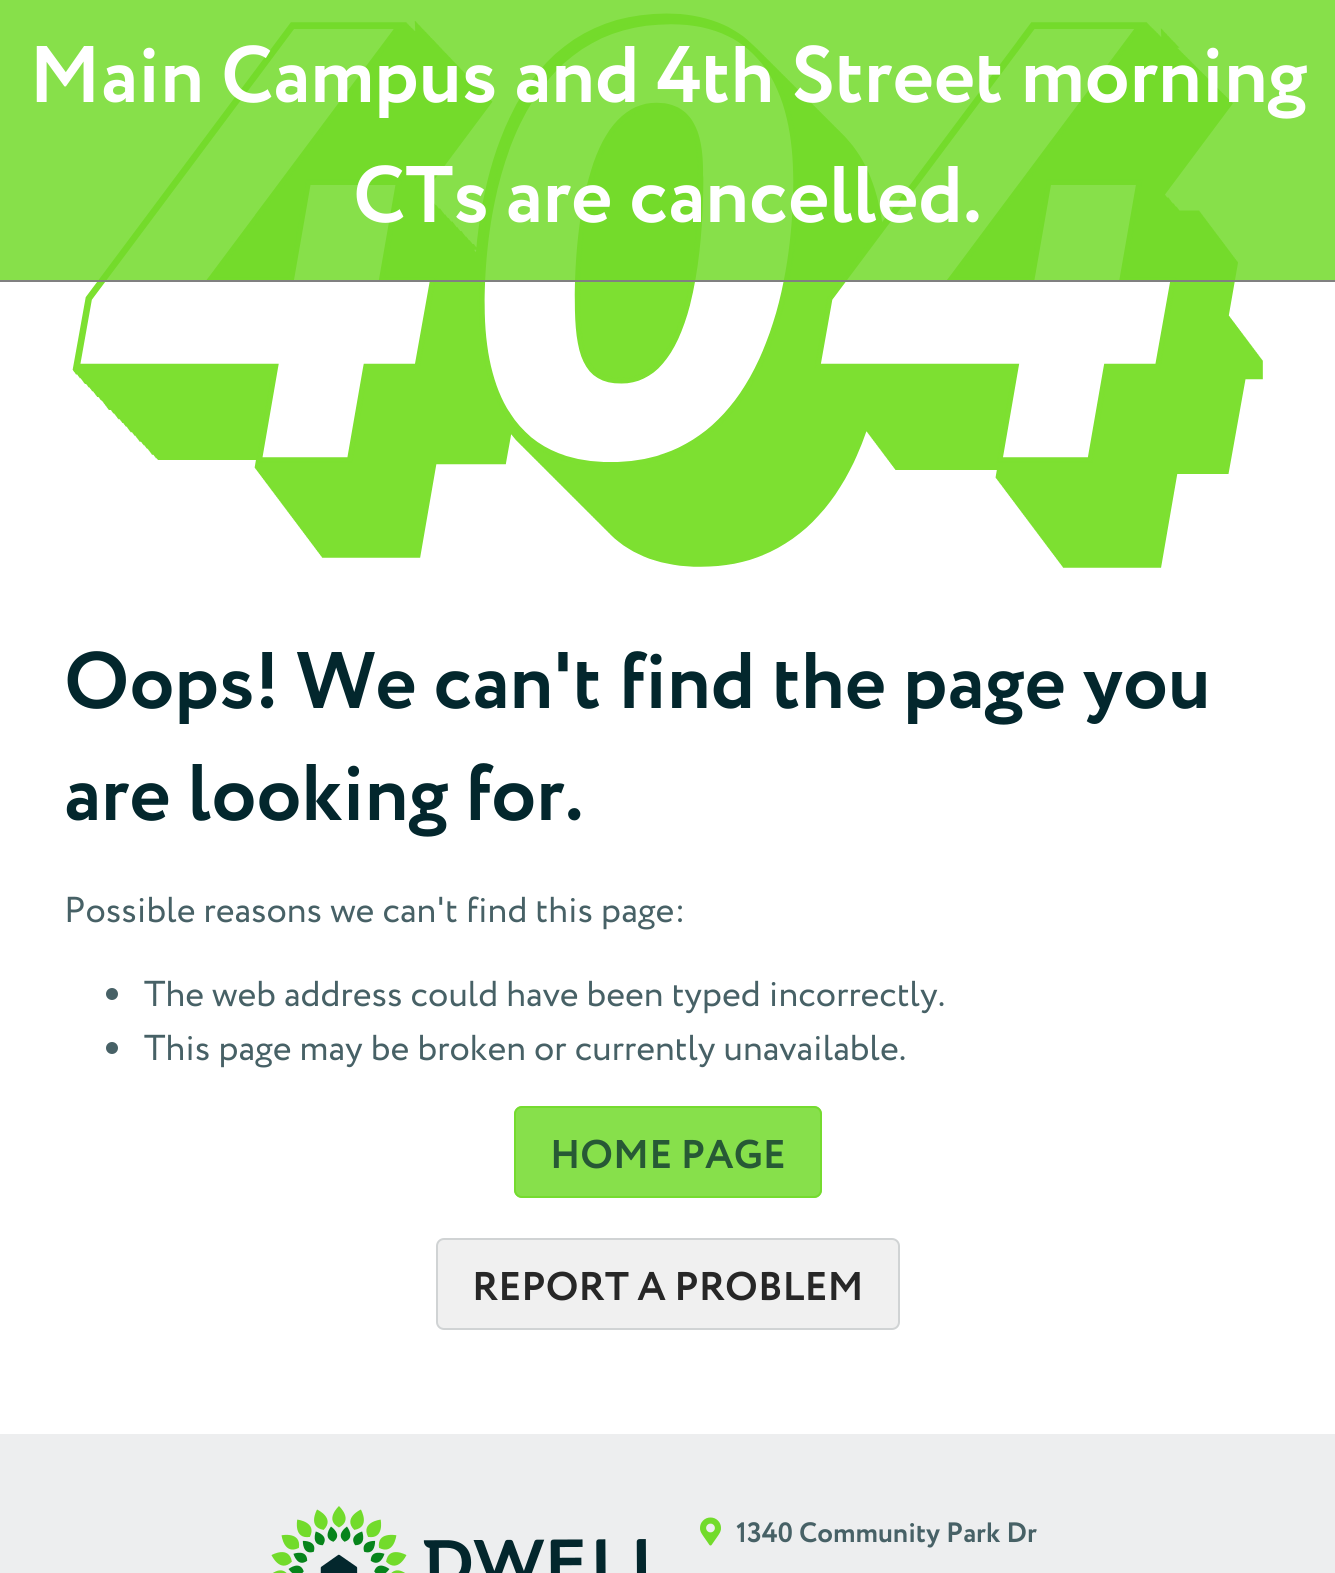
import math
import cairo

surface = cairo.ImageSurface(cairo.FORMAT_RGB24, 1335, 1573)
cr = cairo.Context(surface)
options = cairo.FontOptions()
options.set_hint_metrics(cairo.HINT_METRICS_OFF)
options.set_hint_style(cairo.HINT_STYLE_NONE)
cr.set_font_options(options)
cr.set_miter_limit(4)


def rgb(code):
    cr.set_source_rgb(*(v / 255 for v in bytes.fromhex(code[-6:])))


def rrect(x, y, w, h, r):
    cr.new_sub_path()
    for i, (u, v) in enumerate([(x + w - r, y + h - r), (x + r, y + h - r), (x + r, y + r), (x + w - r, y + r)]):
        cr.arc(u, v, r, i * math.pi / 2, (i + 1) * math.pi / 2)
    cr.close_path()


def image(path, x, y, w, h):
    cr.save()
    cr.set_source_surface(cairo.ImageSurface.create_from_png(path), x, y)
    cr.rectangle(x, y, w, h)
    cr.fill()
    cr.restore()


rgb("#ffffff")
cr.paint()
image("img/1.png", 72, 13, 1191, 555)
cr.set_source_rgba(0.447, 0.859, 0.169, 0.85)
cr.rectangle(0, 0, 1335, 280)
cr.fill()
rgb("#808080")
cr.rectangle(0, 280, 1335, 2)
cr.fill()
rgb("#476166")
cr.arc(112, 994, 6, 0, 2 * math.pi)
cr.fill()
cr.arc(112, 1048, 6, 0, 2 * math.pi)
cr.fill()
rgb("#87e04b")
rrect(514, 1106, 308, 92, 8)
cr.fill()
rrect(515, 1107, 306, 90, 7)
cr.set_source_rgba(0.447, 0.859, 0.169, 0.85)
cr.stroke()
rgb("#f0f0f0")
rrect(437, 1239, 462, 90, 7)
cr.fill_preserve()
rgb("#d0d3d4")
cr.stroke()
rgb("#edeeef")
cr.rectangle(0, 1434, 1335, 139)
cr.fill()
image("img/2.png", 271, 1506, 376, 67)
image("img/3.png", 700, 1517, 21, 29)
cr.select_font_face("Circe", cairo.FONT_SLANT_NORMAL, cairo.FONT_WEIGHT_BOLD)
cr.set_font_size(80)
rgb("#ffffff")
cr.move_to(29, 102)
cr.show_text("Main Campus and 4th Street morning")
cr.move_to(353, 222)
cr.show_text("CTs are cancelled.")
rgb("#03272d")
cr.move_to(64, 708)
cr.show_text("Oops! We can't find the page you")
cr.move_to(64, 820)
cr.show_text("are looking for.")
cr.select_font_face("Circe")
cr.set_font_size(36)
rgb("#476166")
for x, y, s in [
    (64, 922, "Possible reasons we can't find this page:"),
    (144, 1006, "The web address could have been typed incorrectly."),
    (144, 1060, "This page may be broken or currently unavailable."),
]:
    cr.move_to(x, y)
    cr.show_text(s)
cr.select_font_face("Circe", cairo.FONT_SLANT_NORMAL, cairo.FONT_WEIGHT_BOLD)
cr.set_font_size(40)
rgb("#275935")
cr.move_to(550, 1168)
cr.show_text("HOME PAGE")
rgb("#272727")
cr.move_to(472, 1300)
cr.show_text("REPORT A PROBLEM")
cr.set_font_size(28)
rgb("#476166")
cr.move_to(736, 1542)
cr.show_text("1340 Community Park Dr")
surface.write_to_png("page.png")
